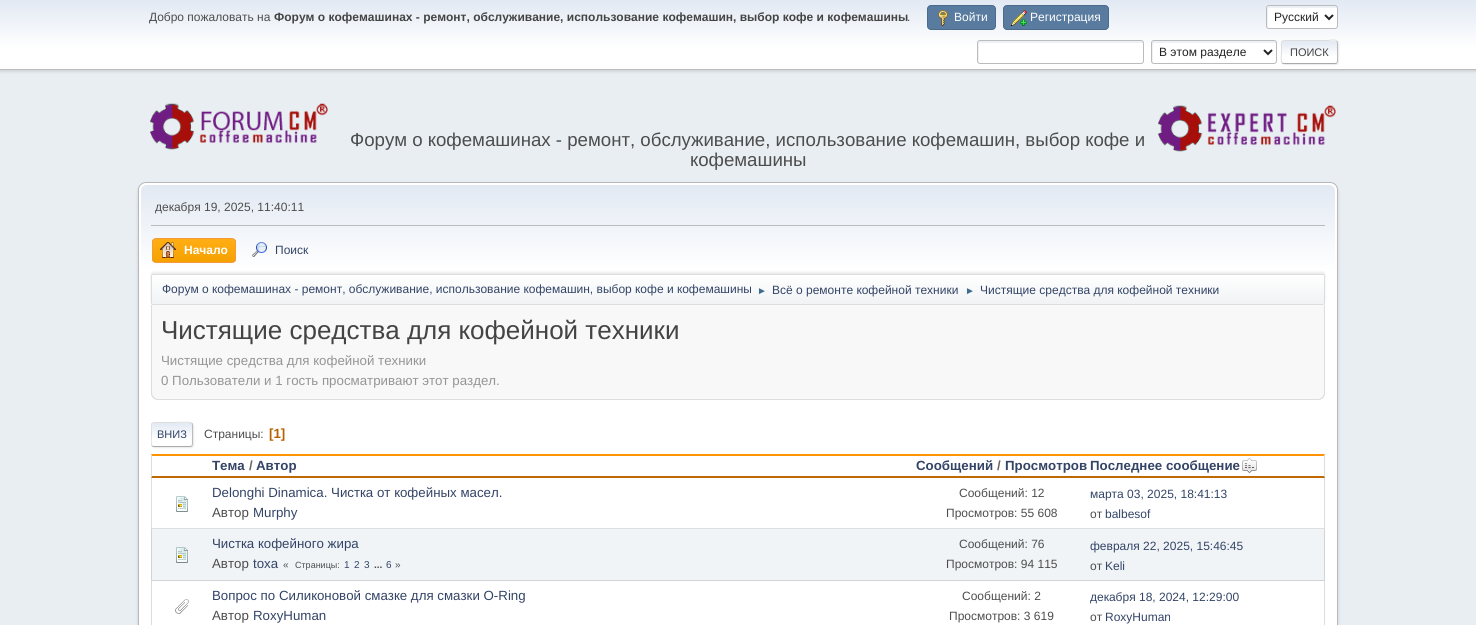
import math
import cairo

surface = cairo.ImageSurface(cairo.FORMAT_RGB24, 1476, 625)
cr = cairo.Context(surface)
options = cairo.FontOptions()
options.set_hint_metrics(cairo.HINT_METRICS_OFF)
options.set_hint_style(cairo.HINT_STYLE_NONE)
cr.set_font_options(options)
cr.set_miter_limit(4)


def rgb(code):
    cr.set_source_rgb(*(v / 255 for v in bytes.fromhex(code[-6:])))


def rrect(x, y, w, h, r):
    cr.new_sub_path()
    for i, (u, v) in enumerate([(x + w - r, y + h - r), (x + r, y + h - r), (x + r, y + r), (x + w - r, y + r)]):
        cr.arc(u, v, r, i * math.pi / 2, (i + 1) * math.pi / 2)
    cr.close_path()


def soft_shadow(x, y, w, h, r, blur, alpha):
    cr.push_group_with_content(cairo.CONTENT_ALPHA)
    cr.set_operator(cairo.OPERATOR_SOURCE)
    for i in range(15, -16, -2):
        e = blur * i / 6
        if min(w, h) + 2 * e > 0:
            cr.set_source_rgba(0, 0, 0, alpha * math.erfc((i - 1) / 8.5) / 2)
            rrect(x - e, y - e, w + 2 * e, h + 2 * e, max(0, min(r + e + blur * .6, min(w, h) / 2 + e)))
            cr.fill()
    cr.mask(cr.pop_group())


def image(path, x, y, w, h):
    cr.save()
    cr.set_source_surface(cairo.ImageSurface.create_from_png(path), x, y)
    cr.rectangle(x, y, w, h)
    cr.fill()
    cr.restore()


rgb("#e9eef2")
cr.paint()
rgb("#000000")
soft_shadow(0, 1, 1476, 70, 0, 2, 0.16)
gradient = cairo.LinearGradient(738, 0, 738, 69)
gradient.add_color_stop_rgba(0, 0.886, 0.914, 0.953, 1)
gradient.add_color_stop_rgba(0.7, 1, 1, 1, 1)
cr.set_source(gradient)
cr.rectangle(0, 0, 1476, 69)
cr.fill()
rgb("#bbbbbb")
cr.rectangle(0, 69, 1476, 1)
cr.fill()
rgb("#597b9f")
rrect(927.5, 5.5, 68, 24, 3.5)
cr.fill_preserve()
rgb("#4a6b8c")
cr.set_line_width(1)
cr.stroke()
image("img/1.png", 938, 10, 10, 16)
rgb("#597b9f")
rrect(1003.5, 5.5, 105, 24, 3.5)
cr.fill_preserve()
rgb("#4a6b8c")
cr.stroke()
image("img/2.png", 1011, 10, 16, 16)
rgb("#ffffff")
rrect(1266, 5, 72, 24, 3)
cr.fill()
rgb("#ecf1f8")
cr.new_path()
cr.move_to(1270, 8)
cr.line_to(1337, 8)
cr.curve_to(1337, 4, 1329, 6, 1324, 6)
cr.line_to(1280, 6)
cr.curve_to(1267, 6, 1267, 3, 1267, 14)
cr.curve_to(1267, 16, 1266, 26, 1268, 28)
cr.line_to(1268, 10)
cr.curve_to(1268, 9, 1269, 8, 1270, 8)
cr.close_path()
cr.fill()
rrect(1266.5, 5.5, 71, 23, 2.5)
rgb("#bbbbbb")
cr.stroke()
cr.new_path()
cr.move_to(1325, 15)
cr.line_to(1329, 19)
cr.line_to(1333, 15)
rgb("#222222")
cr.set_line_width(2)
cr.stroke()
rgb("#ffffff")
rrect(977, 40, 167, 24, 3)
cr.fill()
rgb("#ecf1f8")
cr.new_path()
cr.move_to(981, 43)
cr.line_to(1143, 43)
cr.line_to(1143, 42)
cr.line_to(1141, 41)
cr.line_to(980, 41)
cr.curve_to(979, 41, 978, 42, 978, 43)
cr.curve_to(978, 46, 977, 62, 979, 63)
cr.line_to(979, 45)
cr.curve_to(979, 44, 980, 43, 981, 43)
cr.close_path()
cr.fill()
rrect(977.5, 40.5, 166, 23, 2.5)
rgb("#bbbbbb")
cr.set_line_width(1)
cr.stroke()
rgb("#ffffff")
rrect(1151, 40, 126, 24, 3)
cr.fill()
rgb("#ecf1f8")
cr.new_path()
cr.move_to(1155, 43)
cr.line_to(1276, 43)
cr.curve_to(1276, 42, 1275, 41, 1274, 41)
cr.line_to(1154, 41)
cr.curve_to(1153, 41, 1152, 42, 1152, 43)
cr.line_to(1152, 61)
cr.curve_to(1152, 62, 1152, 62, 1153, 63)
cr.line_to(1153, 45)
cr.curve_to(1153, 44, 1154, 43, 1155, 43)
cr.close_path()
cr.fill()
rrect(1151.5, 40.5, 125, 23, 2.5)
rgb("#bbbbbb")
cr.stroke()
cr.new_path()
cr.move_to(1264, 50)
cr.line_to(1268, 54)
cr.line_to(1272, 50)
rgb("#222222")
cr.set_line_width(2)
cr.stroke()
rgb("#dddddd")
soft_shadow(1282, 41, 57, 24, 3, 0.5, 0.57)
rgb("#ffffff")
rrect(1281, 40, 57, 24, 3)
cr.fill()
cr.save()
rrect(1281, 40, 57, 24, 3)
cr.clip()
gradient = cairo.LinearGradient(1310, 41, 1310, 63)
gradient.add_color_stop_rgba(0, 0.886, 0.914, 0.953, 1)
gradient.add_color_stop_rgba(0.7, 1, 1, 1, 1)
cr.set_source(gradient)
cr.rectangle(1281, 41, 57, 22)
cr.fill()
cr.restore()
cr.new_path()
cr.move_to(1337, 41)
cr.curve_to(1337, 41.5, 1337.5, 42.5, 1337.5, 43)
cr.line_to(1337.5, 61)
cr.curve_to(1337.5, 61.5, 1337, 62.5, 1337, 63)
rgb("#bbbbbb")
cr.set_line_width(1)
cr.stroke()
cr.new_path()
cr.move_to(1337, 63)
cr.line_to(1335, 63.5)
cr.line_to(1284, 63.5)
cr.line_to(1282, 63)
rgb("#aaaaaa")
cr.stroke()
cr.new_path()
cr.move_to(1282, 63)
cr.curve_to(1280.5, 61, 1281.5, 54, 1281.5, 52)
cr.curve_to(1281.5, 39, 1279.5, 40.5, 1292.5, 40.5)
cr.line_to(1326.5, 40.5)
cr.curve_to(1330, 40.5, 1334.5, 39, 1337, 41)
rgb("#dddddd")
cr.stroke()
image("img/3.png", 150, 103, 178, 47)
image("img/4.png", 1158, 105, 178, 47)
rgb("#000000")
soft_shadow(138, 184, 1200, 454, 8, 1.5, 0.14)
rgb("#ffffff")
rrect(138.5, 182.5, 1199, 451, 7.5)
cr.fill_preserve()
rgb("#b8b8b8")
cr.stroke()
gradient = cairo.LinearGradient(738, 185, 738, 307)
gradient.add_color_stop_rgba(0, 0.886, 0.914, 0.953, 1)
gradient.add_color_stop_rgba(0.7, 1, 1, 1, 1)
cr.set_source(gradient)
cr.new_path()
cr.move_to(147, 185)
cr.line_to(1329, 185)
cr.curve_to(1332.5, 185, 1335, 187.5, 1335, 191)
cr.line_to(1335, 307)
cr.line_to(141, 307)
cr.line_to(141, 191)
cr.curve_to(141, 187.5, 143.5, 185, 147, 185)
cr.close_path()
cr.fill()
rgb("#bbbbbb")
cr.rectangle(151, 225, 1174, 1)
cr.fill()
cr.save()
rrect(152, 238, 84, 25, 4)
cr.clip()
gradient = cairo.LinearGradient(194, 239, 194, 262)
gradient.add_color_stop_rgba(0, 1, 0.682, 0.078, 1)
gradient.add_color_stop_rgba(1, 0.961, 0.631, 0, 1)
cr.set_source(gradient)
cr.rectangle(152, 239, 84, 23)
cr.fill()
cr.restore()
rrect(152.5, 238.5, 83, 24, 3.5)
rgb("#f49a3a")
cr.stroke()
image("img/5.png", 160, 242, 16, 16)
image("img/6.png", 252, 242, 15, 15)
rgb("#000000")
soft_shadow(151, 272, 1174, 31, 2, 1, 0.08)
cr.save()
rrect(151, 274, 1174, 31, 2)
cr.clip()
gradient = cairo.LinearGradient(738, 275, 738, 304)
gradient.add_color_stop_rgba(0, 1, 1, 1, 1)
gradient.add_color_stop_rgba(0.95, 0.945, 0.953, 0.961, 1)
cr.set_source(gradient)
cr.rectangle(151, 275, 1174, 29)
cr.fill()
cr.restore()
rrect(151.5, 274.5, 1173, 30, 1.5)
rgb("#dddddd")
cr.stroke()
rgb("#f8f8f8")
cr.new_path()
cr.move_to(151, 305)
cr.line_to(1325, 305)
cr.line_to(1325, 393)
cr.curve_to(1325, 397, 1322, 400, 1318, 400)
cr.line_to(158, 400)
cr.curve_to(154, 400, 151, 397, 151, 393)
cr.close_path()
cr.fill()
rgb("#dddddd")
cr.set_fill_rule(cairo.FILL_RULE_EVEN_ODD)
cr.new_path()
cr.move_to(151, 305)
cr.line_to(1325, 305)
cr.line_to(1325, 393)
cr.curve_to(1325, 397, 1322, 400, 1318, 400)
cr.line_to(158, 400)
cr.curve_to(154, 400, 151, 397, 151, 393)
cr.close_path()
cr.move_to(152, 305)
cr.line_to(1324, 305)
cr.line_to(1324, 393)
cr.curve_to(1324, 396, 1321, 399, 1318, 399)
cr.line_to(158, 399)
cr.curve_to(155, 399, 152, 396, 152, 393)
cr.close_path()
cr.fill()
rgb("#dddddd")
soft_shadow(152, 423, 42, 25, 3, 0.5, 0.57)
rgb("#ffffff")
rrect(151, 422, 42, 25, 3)
cr.fill()
cr.save()
cr.set_fill_rule(cairo.FILL_RULE_WINDING)
rrect(151, 422, 42, 25, 3)
cr.clip()
gradient = cairo.LinearGradient(172, 423, 172, 446)
gradient.add_color_stop_rgba(0, 0.886, 0.914, 0.953, 1)
gradient.add_color_stop_rgba(0.7, 1, 1, 1, 1)
cr.set_source(gradient)
cr.rectangle(151, 423, 42, 23)
cr.fill()
cr.restore()
cr.new_path()
cr.move_to(192, 423)
cr.curve_to(192, 423.5, 192.5, 424.5, 192.5, 425)
cr.line_to(192.5, 444)
cr.curve_to(192.5, 444.5, 192, 445.5, 192, 446)
rgb("#bbbbbb")
cr.stroke()
cr.new_path()
cr.move_to(192, 446)
cr.line_to(190, 446.5)
cr.line_to(154, 446.5)
cr.line_to(152, 446)
rgb("#aaaaaa")
cr.stroke()
cr.save()
cr.set_fill_rule(cairo.FILL_RULE_WINDING)
cr.rectangle(151, 415, 1174, 39)
cr.clip()
cr.new_path()
cr.move_to(152, 446)
cr.curve_to(150.5, 444, 151.5, 437, 151.5, 434.5)
cr.curve_to(151.5, 422.5, 149, 422.5, 160, 422.5)
cr.line_to(172, 422.5)
cr.curve_to(175, 422.5, 190, 421.5, 192, 423)
rgb("#dddddd")
cr.stroke()
cr.restore()
rgb("#ff9400")
cr.set_fill_rule(cairo.FILL_RULE_WINDING)
cr.new_path()
cr.move_to(151, 454)
cr.line_to(1325, 454)
cr.line_to(1324, 456)
cr.line_to(152, 456)
cr.close_path()
cr.fill()
rgb("#dddddd")
cr.new_path()
cr.move_to(1325, 454)
cr.line_to(1325, 478)
cr.line_to(1324, 476)
cr.line_to(1324, 456)
cr.close_path()
cr.fill()
rgb("#bf6900")
cr.new_path()
cr.move_to(1325, 478)
cr.line_to(151, 478)
cr.line_to(152, 476)
cr.line_to(1324, 476)
cr.close_path()
cr.fill()
rgb("#dddddd")
cr.new_path()
cr.move_to(151, 478)
cr.line_to(151, 454)
cr.line_to(152, 456)
cr.line_to(152, 476)
cr.close_path()
cr.fill()
image("img/7.png", 1242, 458, 15, 15)
rgb("#dcdcdc")
cr.new_path()
cr.move_to(1325, 478)
cr.line_to(1325, 529)
cr.line_to(1324, 528)
cr.line_to(1324, 478)
cr.close_path()
cr.fill()
cr.set_source_rgba(0, 0, 0, 0.13)
cr.new_path()
cr.move_to(1325, 529)
cr.line_to(151, 529)
cr.line_to(152, 528)
cr.line_to(1324, 528)
cr.close_path()
cr.fill()
cr.new_path()
cr.move_to(151, 529)
cr.line_to(151, 478)
cr.line_to(152, 478)
cr.line_to(152, 528)
cr.close_path()
cr.fill()
image("img/8.png", 176, 496, 12, 16)
rgb("#f0f4f7")
cr.rectangle(151, 529, 1174, 52)
cr.fill()
rgb("#d1d4d7")
cr.new_path()
cr.move_to(1325, 529)
cr.line_to(1325, 581)
cr.line_to(1324, 580)
cr.line_to(1324, 529)
cr.close_path()
cr.fill()
cr.set_source_rgba(0, 0, 0, 0.13)
cr.new_path()
cr.move_to(1325, 581)
cr.line_to(151, 581)
cr.line_to(152, 580)
cr.line_to(1324, 580)
cr.close_path()
cr.fill()
cr.new_path()
cr.move_to(151, 581)
cr.line_to(151, 529)
cr.line_to(152, 529)
cr.line_to(152, 580)
cr.close_path()
cr.fill()
image("img/9.png", 176, 547, 12, 16)
rgb("#dcdcdc")
cr.new_path()
cr.move_to(1325, 581)
cr.line_to(1325, 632)
cr.line_to(1324, 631)
cr.line_to(1324, 581)
cr.close_path()
cr.fill()
cr.new_path()
cr.move_to(151, 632)
cr.line_to(151, 581)
cr.line_to(152, 581)
cr.line_to(152, 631)
cr.close_path()
cr.fill()
image("img/10.png", 175, 599, 14, 15)
cr.select_font_face("Liberation Sans")
cr.set_font_size(12)
rgb("#4d4d4d")
cr.move_to(149, 21)
cr.show_text("Добро пожаловать на")
cr.select_font_face("Liberation Sans", cairo.FONT_SLANT_NORMAL, cairo.FONT_WEIGHT_BOLD)
rgb("#444444")
cr.move_to(274, 21)
cr.show_text("Форум о кофемашинах - ремонт, обслуживание, использование кофемашин, выбор кофе и кофемашины")
cr.select_font_face("Liberation Sans")
rgb("#4d4d4d")
cr.move_to(907, 21)
cr.show_text(".")
rgb("#ffffff")
cr.move_to(954, 21)
cr.show_text("Войти")
cr.move_to(1030, 21)
cr.show_text("Регистрация")
rgb("#222222")
cr.move_to(1274, 21)
cr.show_text("Русский")
cr.move_to(1159, 56)
cr.show_text("В этом разделе")
cr.set_font_size(11)
rgb("#444444")
cr.move_to(1290, 56)
cr.show_text("ПОИСК")
cr.set_font_size(18.65)
rgb("#4d4d4d")
cr.move_to(350, 146)
cr.show_text("Форум о кофемашинах - ремонт, обслуживание, использование кофемашин, выбор кофе и")
cr.move_to(690, 166)
cr.show_text("кофемашины")
cr.set_font_size(12)
cr.move_to(155, 211)
cr.show_text("декабря 19, 2025, 11:40:11")
cr.select_font_face("Liberation Sans", cairo.FONT_SLANT_NORMAL, cairo.FONT_WEIGHT_BOLD)
rgb("#ffffff")
cr.move_to(184, 254)
cr.show_text("Начало")
cr.select_font_face("Liberation Sans")
rgb("#334466")
cr.move_to(275, 254)
cr.show_text("Поиск")
cr.move_to(162, 293)
cr.show_text("Форум о кофемашинах - ремонт, обслуживание, использование кофемашин, выбор кофе и кофемашины")
cr.set_font_size(10)
rgb("#3f6b8c")
cr.move_to(757, 294)
cr.show_text("►")
cr.set_font_size(12)
rgb("#334466")
cr.move_to(772, 294)
cr.show_text("Всё о ремонте кофейной техники")
cr.set_font_size(10)
rgb("#3f6b8c")
cr.move_to(965, 294)
cr.show_text("►")
cr.set_font_size(12)
rgb("#334466")
cr.move_to(980, 294)
cr.show_text("Чистящие средства для кофейной техники")
cr.set_font_size(26)
rgb("#444444")
cr.move_to(161, 339)
cr.show_text("Чистящие средства для кофейной техники")
cr.set_font_size(13.3)
rgb("#959595")
cr.move_to(161, 365)
cr.show_text("Чистящие средства для кофейной техники")
cr.move_to(161, 385)
cr.show_text("0 Пользователи и 1 гость просматривают этот раздел.")
cr.set_font_size(11)
rgb("#334466")
cr.move_to(157, 438)
cr.show_text("ВНИЗ")
cr.set_font_size(12)
rgb("#4d4d4d")
cr.move_to(204, 438)
cr.show_text("Страницы:")
cr.select_font_face("Liberation Sans", cairo.FONT_SLANT_NORMAL, cairo.FONT_WEIGHT_BOLD)
cr.set_font_size(13.3)
rgb("#b46100")
cr.move_to(269, 438)
cr.show_text("[1]")
rgb("#334466")
cr.move_to(212, 470)
cr.show_text("Тема")
rgb("#666666")
cr.move_to(249, 470)
cr.show_text("/")
rgb("#334466")
cr.move_to(256, 470)
cr.show_text("Автор")
cr.move_to(916, 470)
cr.show_text("Сообщений")
rgb("#666666")
cr.move_to(997, 470)
cr.show_text("/")
rgb("#334466")
cr.move_to(1005, 470)
cr.show_text("Просмотров")
cr.move_to(1090, 470)
cr.show_text("Последнее сообщение")
cr.select_font_face("Liberation Sans")
cr.move_to(212, 497)
cr.show_text("Delonghi Dinamica. Чистка от кофейных масел.")
rgb("#4d4d4d")
cr.move_to(212, 517)
cr.show_text("Автор")
rgb("#334466")
cr.move_to(253, 517)
cr.show_text("Murphy")
cr.set_font_size(12)
rgb("#4d4d4d")
cr.move_to(959, 497)
cr.show_text("Сообщений: 12")
cr.move_to(946, 517)
cr.show_text("Просмотров: 55 608")
rgb("#334466")
cr.move_to(1090, 498)
cr.show_text("марта 03, 2025, 18:41:13")
rgb("#4d4d4d")
cr.move_to(1090, 518)
cr.show_text("от")
rgb("#334466")
cr.move_to(1105, 518)
cr.show_text("balbesof")
cr.set_font_size(13.3)
cr.move_to(212, 548)
cr.show_text("Чистка кофейного жира")
rgb("#4d4d4d")
cr.move_to(212, 568)
cr.show_text("Автор")
rgb("#334466")
cr.move_to(253, 568)
cr.show_text("toxa")
cr.set_font_size(10)
rgb("#4d4d4d")
cr.move_to(283, 568)
cr.show_text("«")
cr.set_font_size(9)
cr.move_to(295, 568)
cr.show_text("Страницы:")
cr.set_font_size(10)
rgb("#334466")
for x, y, s in [
    (344, 568, "1"),
    (354, 568, "2"),
    (364, 568, "3"),
]:
    cr.move_to(x, y)
    cr.show_text(s)
cr.select_font_face("Liberation Sans", cairo.FONT_SLANT_NORMAL, cairo.FONT_WEIGHT_BOLD)
rgb("#4d4d4d")
cr.move_to(374, 568)
cr.show_text("...")
cr.select_font_face("Liberation Sans")
rgb("#334466")
cr.move_to(386, 568)
cr.show_text("6")
rgb("#4d4d4d")
cr.move_to(395, 568)
cr.show_text("»")
cr.set_font_size(12)
cr.move_to(959, 548)
cr.show_text("Сообщений: 76")
cr.move_to(946, 568)
cr.show_text("Просмотров: 94 115")
rgb("#334466")
cr.move_to(1090, 550)
cr.show_text("февраля 22, 2025, 15:46:45")
rgb("#4d4d4d")
cr.move_to(1090, 570)
cr.show_text("от")
rgb("#334466")
cr.move_to(1105, 570)
cr.show_text("Keli")
cr.set_font_size(13.3)
cr.move_to(212, 600)
cr.show_text("Вопрос по Силиконовой смазке для смазки O-Ring")
rgb("#4d4d4d")
cr.move_to(212, 620)
cr.show_text("Автор")
rgb("#334466")
cr.move_to(253, 620)
cr.show_text("RoxyHuman")
cr.set_font_size(12)
rgb("#4d4d4d")
cr.move_to(962, 600)
cr.show_text("Сообщений: 2")
cr.move_to(949, 620)
cr.show_text("Просмотров: 3 619")
rgb("#334466")
cr.move_to(1090, 601)
cr.show_text("декабря 18, 2024, 12:29:00")
rgb("#4d4d4d")
cr.move_to(1090, 621)
cr.show_text("от")
rgb("#334466")
cr.move_to(1105, 621)
cr.show_text("RoxyHuman")
surface.write_to_png("page.png")
